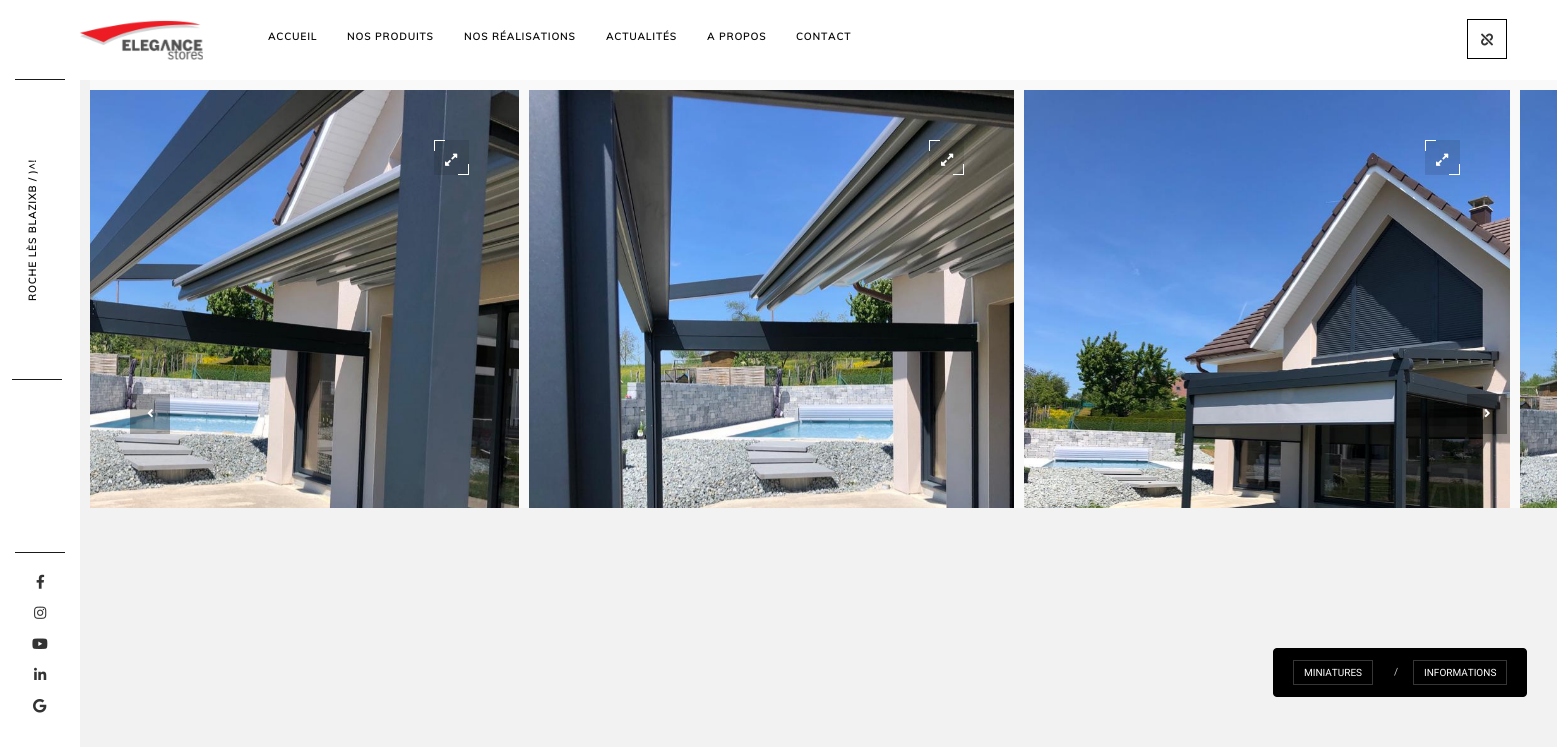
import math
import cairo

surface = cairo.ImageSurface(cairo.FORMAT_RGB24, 1557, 747)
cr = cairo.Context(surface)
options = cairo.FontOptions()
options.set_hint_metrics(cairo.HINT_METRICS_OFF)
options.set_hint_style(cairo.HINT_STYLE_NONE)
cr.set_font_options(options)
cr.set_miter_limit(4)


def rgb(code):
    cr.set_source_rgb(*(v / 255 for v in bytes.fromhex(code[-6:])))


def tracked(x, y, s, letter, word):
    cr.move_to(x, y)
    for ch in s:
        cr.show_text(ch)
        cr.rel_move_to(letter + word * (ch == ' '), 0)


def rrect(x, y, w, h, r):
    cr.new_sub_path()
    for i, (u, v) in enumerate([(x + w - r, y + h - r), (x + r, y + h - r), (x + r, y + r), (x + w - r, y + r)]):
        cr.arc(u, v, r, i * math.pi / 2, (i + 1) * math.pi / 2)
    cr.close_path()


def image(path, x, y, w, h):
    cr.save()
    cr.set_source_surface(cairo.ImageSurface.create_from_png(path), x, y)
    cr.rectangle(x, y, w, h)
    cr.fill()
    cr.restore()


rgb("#f2f2f2")
cr.paint()
rgb("#ffffff")
cr.rectangle(0, 0, 1557, 80)
cr.fill()
image("img/1.png", 80, 20, 123, 40)
cr.rectangle(1467.5, 19.5, 39, 39)
rgb("#000000")
cr.set_line_width(1)
cr.stroke()
image("img/2.png", 1481, 33, 12, 13)
for x, y, w, h, color in [
    (15, 79, 50, 1, "#1a1a1a"),
    (0, 80, 80, 667, "#ffffff"),
    (12, 379, 50, 1, "#1a1a1a"),
    (15, 552, 50, 1, "#1a1a1a"),
]:
    rgb(color)
    cr.rectangle(x, y, w, h)
    cr.fill()
image("img/3.png", 36, 574, 9, 15)
image("img/4.png", 34, 606, 13, 13)
image("img/5.png", 32, 638, 16, 11)
image("img/6.png", 34, 667, 13, 13)
image("img/7.png", 33, 699, 14, 14)
rgb("#f9f9f9")
cr.rectangle(90, 80, 1467, 428)
cr.fill()
image("img/8.png", 90, 90, 429, 418)
cr.set_source_rgba(0, 0, 0, 0.11)
cr.rectangle(434, 140, 35, 35)
cr.fill()
rgb("#ffffff")
cr.rectangle(434, 140, 11, 1)
cr.rectangle(434, 140, 1, 11)
cr.fill()
image("img/9.png", 445, 153, 13, 13)
cr.rectangle(468, 164, 1, 11)
cr.fill()
cr.rectangle(458, 174, 11, 1)
cr.fill()
image("img/10.png", 529, 90, 485, 418)
cr.set_source_rgba(0, 0, 0, 0.11)
cr.rectangle(929, 140, 35, 35)
cr.fill()
rgb("#ffffff")
cr.rectangle(929, 140, 11, 1)
cr.rectangle(929, 140, 1, 11)
cr.fill()
image("img/11.png", 941, 153, 13, 13)
cr.rectangle(963, 164, 1, 11)
cr.fill()
cr.rectangle(953, 174, 11, 1)
cr.fill()
image("img/12.png", 1024, 90, 486, 418)
cr.set_source_rgba(0, 0, 0, 0.11)
cr.rectangle(1425, 140, 35, 35)
cr.fill()
rgb("#ffffff")
cr.rectangle(1425, 140, 11, 1)
cr.rectangle(1425, 140, 1, 11)
cr.fill()
image("img/13.png", 1436, 153, 13, 13)
cr.rectangle(1459, 164, 1, 11)
cr.fill()
cr.rectangle(1449, 174, 11, 1)
cr.fill()
image("img/14.png", 1520, 90, 37, 418)
cr.set_source_rgba(0, 0, 0, 0.31)
cr.rectangle(130, 394, 40, 40)
cr.fill()
image("img/15.png", 147, 409, 6, 9)
cr.rectangle(1467, 394, 40, 40)
cr.fill()
image("img/16.png", 1484, 409, 6, 9)
rgb("#000000")
rrect(1273, 648, 254, 49, 4)
cr.fill()
cr.rectangle(1293.5, 660.5, 79, 24)
rgb("#363636")
cr.stroke()
cr.rectangle(1413.5, 660.5, 93, 24)
cr.stroke()
cr.select_font_face("Muli", cairo.FONT_SLANT_NORMAL, cairo.FONT_WEIGHT_BOLD)
cr.set_font_size(10)
rgb("#0a0a0a")
for x, y, s in [
    (268, 40, "ACCUEIL"),
    (347, 40, "NOS PRODUITS"),
    (464, 40, "NOS RÉALISATIONS"),
    (606, 40, "ACTUALITÉS"),
    (707, 40, "A PROPOS"),
    (796, 40, "CONTACT"),
]:
    tracked(x, y, s, 1, 0)
cr.save()
cr.translate(36, 301)
cr.rotate(-90 * math.pi / 180)
tracked(0, 0, "ROCHE LÈS BLAZIXB / )^!", 1, 0)
cr.restore()
cr.select_font_face("Roboto")
rgb("#ffffff")
cr.move_to(1304, 676)
cr.show_text("MINIATURES")
rgb("#cccccc")
cr.move_to(1394, 675)
cr.show_text("/")
rgb("#ffffff")
cr.move_to(1424, 676)
cr.show_text("INFORMATIONS")
surface.write_to_png("page.png")
